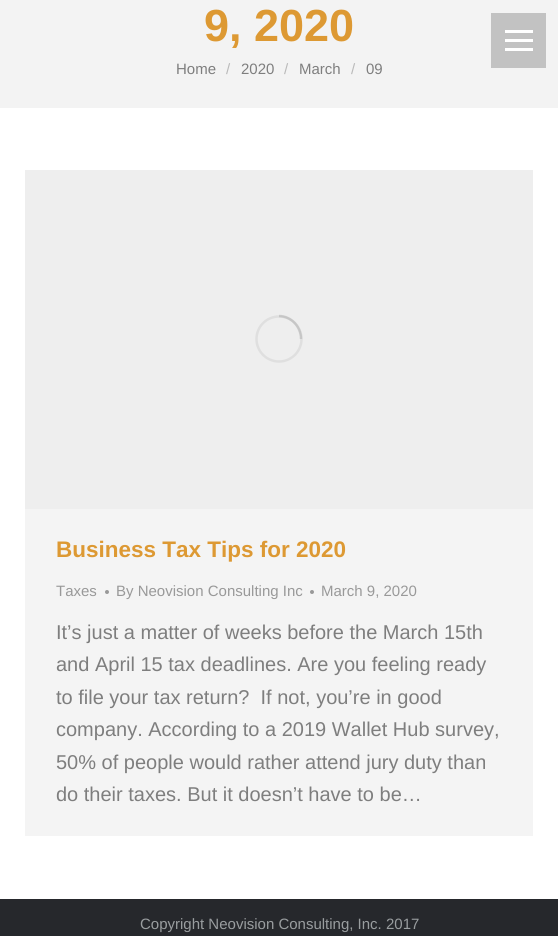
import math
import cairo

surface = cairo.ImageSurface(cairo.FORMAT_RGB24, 558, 936)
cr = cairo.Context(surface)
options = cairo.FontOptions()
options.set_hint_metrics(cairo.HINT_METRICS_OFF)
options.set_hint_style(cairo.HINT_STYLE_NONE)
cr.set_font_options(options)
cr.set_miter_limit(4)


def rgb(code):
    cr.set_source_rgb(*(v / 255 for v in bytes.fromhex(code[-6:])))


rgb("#ffffff")
cr.paint()
for x, y, w, h, color in [
    (0, 0, 558, 108, "#f3f3f3"),
    (491, 13, 55, 55, "#c2c2c2"),
    (505, 39, 28, 3, "#ffffff"),
    (505, 30, 28, 3, "#ffffff"),
    (505, 48, 28, 3, "#ffffff"),
    (25, 509, 508, 327, "#f4f4f4"),
    (25, 170, 508, 339, "#eeeeee"),
]:
    rgb(color)
    cr.rectangle(x, y, w, h)
    cr.fill()
cr.arc(279, 339, 22.5, 0, 2 * math.pi)
rgb("#dfdfdf")
cr.set_line_width(2.5)
cr.stroke()
cr.new_path()
cr.move_to(301, 339)
cr.curve_to(301, 326.5, 291, 316, 279, 316)
cr.set_source_rgba(0.494, 0.494, 0.494, 0.25)
cr.stroke()
rgb("#999999")
cr.arc(107, 592, 2, 0, 2 * math.pi)
cr.fill()
cr.arc(312, 592, 2, 0, 2 * math.pi)
cr.fill()
rgb("#26282c")
cr.rectangle(0, 899, 558, 37)
cr.fill()
cr.select_font_face("Liberation Sans", cairo.FONT_SLANT_NORMAL, cairo.FONT_WEIGHT_BOLD)
cr.set_font_size(45)
rgb("#dd9933")
cr.move_to(204, 41)
cr.show_text("9, 2020")
cr.select_font_face("Liberation Sans")
cr.set_font_size(15)
rgb("#7e7e7e")
cr.move_to(176, 74)
cr.show_text("Home")
rgb("#b9b9b9")
cr.move_to(226, 74)
cr.show_text("/")
rgb("#7e7e7e")
cr.move_to(241, 74)
cr.show_text("2020")
rgb("#b9b9b9")
cr.move_to(284, 74)
cr.show_text("/")
rgb("#7e7e7e")
cr.move_to(299, 74)
cr.show_text("March")
rgb("#b9b9b9")
cr.move_to(351, 74)
cr.show_text("/")
rgb("#7e7e7e")
cr.move_to(366, 74)
cr.show_text("09")
cr.select_font_face("Liberation Sans", cairo.FONT_SLANT_NORMAL, cairo.FONT_WEIGHT_BOLD)
cr.set_font_size(22.5)
rgb("#dd9933")
cr.move_to(56, 557)
cr.show_text("Business Tax Tips for 2020")
cr.select_font_face("Liberation Sans")
cr.set_font_size(15)
rgb("#999999")
for x, y, s in [
    (56, 596, "Taxes"),
    (116, 596, "By Neovision Consulting Inc"),
    (321, 596, "March 9, 2020"),
]:
    cr.move_to(x, y)
    cr.show_text(s)
cr.set_font_size(20)
rgb("#7e7e7e")
for x, y, s in [
    (56, 639, "It’s just a matter of weeks before the March 15th"),
    (56, 671, "and April 15 tax deadlines. Are you feeling ready"),
    (56, 704, "to file your tax return?  If not, you’re in good"),
    (56, 736, "company. According to a 2019 Wallet Hub survey,"),
    (56, 769, "50% of people would rather attend jury duty than"),
    (56, 801, "do their taxes. But it doesn’t have to be…"),
]:
    cr.move_to(x, y)
    cr.show_text(s)
cr.set_font_size(15)
rgb("#999d9f")
cr.move_to(140, 929)
cr.show_text("Copyright Neovision Consulting, Inc. 2017")
surface.write_to_png("page.png")
